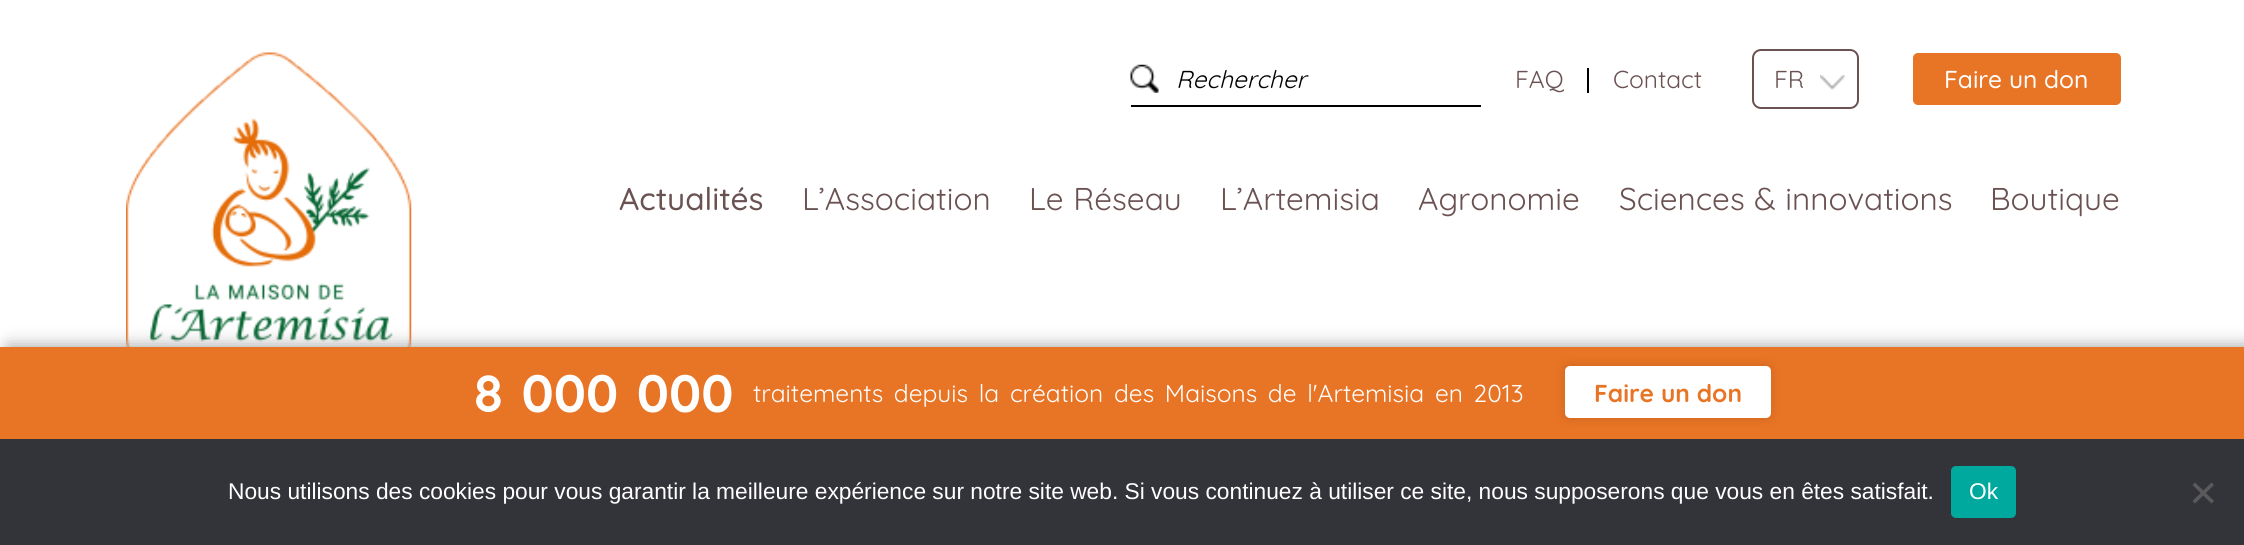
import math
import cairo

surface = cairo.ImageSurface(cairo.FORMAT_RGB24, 2244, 545)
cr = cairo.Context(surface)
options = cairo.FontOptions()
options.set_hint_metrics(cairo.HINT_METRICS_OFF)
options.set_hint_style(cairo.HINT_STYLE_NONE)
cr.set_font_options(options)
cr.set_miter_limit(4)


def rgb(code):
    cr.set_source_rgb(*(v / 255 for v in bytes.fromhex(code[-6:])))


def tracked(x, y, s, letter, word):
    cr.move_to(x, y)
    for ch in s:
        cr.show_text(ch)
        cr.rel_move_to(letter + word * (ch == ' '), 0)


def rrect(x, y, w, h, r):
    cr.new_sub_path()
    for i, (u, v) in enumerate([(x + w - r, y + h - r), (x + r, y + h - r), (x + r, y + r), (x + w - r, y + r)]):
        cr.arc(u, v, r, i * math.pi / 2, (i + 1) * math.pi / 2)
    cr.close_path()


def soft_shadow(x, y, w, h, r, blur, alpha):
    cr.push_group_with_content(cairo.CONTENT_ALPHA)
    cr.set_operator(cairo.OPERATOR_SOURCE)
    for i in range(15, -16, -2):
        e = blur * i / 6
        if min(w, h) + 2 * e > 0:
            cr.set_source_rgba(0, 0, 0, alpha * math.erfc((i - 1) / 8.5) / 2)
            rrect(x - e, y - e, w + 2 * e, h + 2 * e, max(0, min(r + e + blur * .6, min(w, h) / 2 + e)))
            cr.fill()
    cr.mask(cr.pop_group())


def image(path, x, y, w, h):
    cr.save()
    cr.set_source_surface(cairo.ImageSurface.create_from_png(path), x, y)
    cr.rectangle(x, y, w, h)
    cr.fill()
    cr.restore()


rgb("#ffffff")
cr.paint()
image("img/1.png", 126, 52, 286, 295)
rgb("#000000")
cr.rectangle(1131, 105, 350, 2)
cr.fill()
image("img/2.png", 1130, 64, 29, 29)
cr.rectangle(1587, 68, 2, 25)
cr.fill()
rrect(1753, 50, 105, 58, 8)
rgb("#6b5252")
cr.stroke()
image("img/3.png", 1820, 75, 25, 15)
rgb("#e87425")
rrect(1913, 53, 208, 52, 5)
cr.fill()
rgb("#999999")
soft_shadow(9, 347, 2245, 92, 0, 9, 1)
rgb("#e87425")
cr.rectangle(0, 347, 2244, 92)
cr.fill()
rgb("#000000")
soft_shadow(1563, 364, 210, 56, 7, 4.5, 0.1)
rgb("#ffffff")
rrect(1565, 366, 206, 52, 5)
cr.fill()
rgb("#33333a")
cr.rectangle(0, 439, 2244, 106)
cr.fill()
rgb("#00a99d")
rrect(1951, 466, 65, 52, 5)
cr.fill()
rgb("#5a5a5d")
cr.new_path()
cr.move_to(2211.5, 482.5)
cr.line_to(2214, 485)
cr.line_to(2195, 503.5)
cr.line_to(2192.5, 501)
cr.close_path()
cr.fill()
cr.new_path()
cr.move_to(2192.5, 485)
cr.line_to(2195, 482.5)
cr.line_to(2214, 501)
cr.line_to(2211.5, 503.5)
cr.close_path()
cr.fill()
cr.select_font_face("Quicksand", cairo.FONT_SLANT_ITALIC)
cr.set_font_size(24.5)
rgb("#000000")
cr.move_to(1176, 88)
cr.show_text("Rechercher")
cr.select_font_face("Quicksand")
rgb("#6b5252")
for x, y, s in [
    (1515, 88, "FAQ"),
    (1613, 88, "Contact"),
    (1774, 88, "FR"),
]:
    cr.move_to(x, y)
    cr.show_text(s)
cr.select_font_face("Quicksand Medium")
rgb("#ffffff")
cr.move_to(1944, 88)
cr.show_text("Faire un don")
cr.set_font_size(31.5)
rgb("#6b5252")
cr.move_to(619, 210)
cr.show_text("Actualités")
cr.select_font_face("Quicksand")
cr.move_to(802, 210)
cr.show_text("L’Association")
tracked(1029, 210, "Le Réseau", 0, 1)
cr.move_to(1220, 210)
cr.show_text("L’Artemisia")
cr.move_to(1418, 210)
cr.show_text("Agronomie")
tracked(1619, 210, "Sciences & innovations", 0, 1)
cr.move_to(1990, 210)
cr.show_text("Boutique")
cr.select_font_face("Quicksand", cairo.FONT_SLANT_NORMAL, cairo.FONT_WEIGHT_BOLD)
cr.set_font_size(52.5)
rgb("#ffffff")
tracked(474, 412, "8 000 000", 0, 4)
cr.select_font_face("Quicksand")
cr.set_font_size(24.5)
tracked(753, 402, "traitements depuis la création", 0, 4)
tracked(1114, 402, "des Maisons de l'Artemisia en 2013", 0, 4)
cr.select_font_face("Quicksand", cairo.FONT_SLANT_NORMAL, cairo.FONT_WEIGHT_BOLD)
rgb("#e87425")
cr.move_to(1594, 402)
cr.show_text("Faire un don")
cr.select_font_face("Liberation Sans")
cr.set_font_size(22.75)
rgb("#ffffff")
cr.move_to(228, 499)
cr.show_text("Nous utilisons des cookies pour vous garantir la meilleure expérience sur notre site web. Si vous continuez à utiliser ce site, nous supposerons que vous en êtes satisfait.")
cr.move_to(1969, 499)
cr.show_text("Ok")
surface.write_to_png("page.png")
